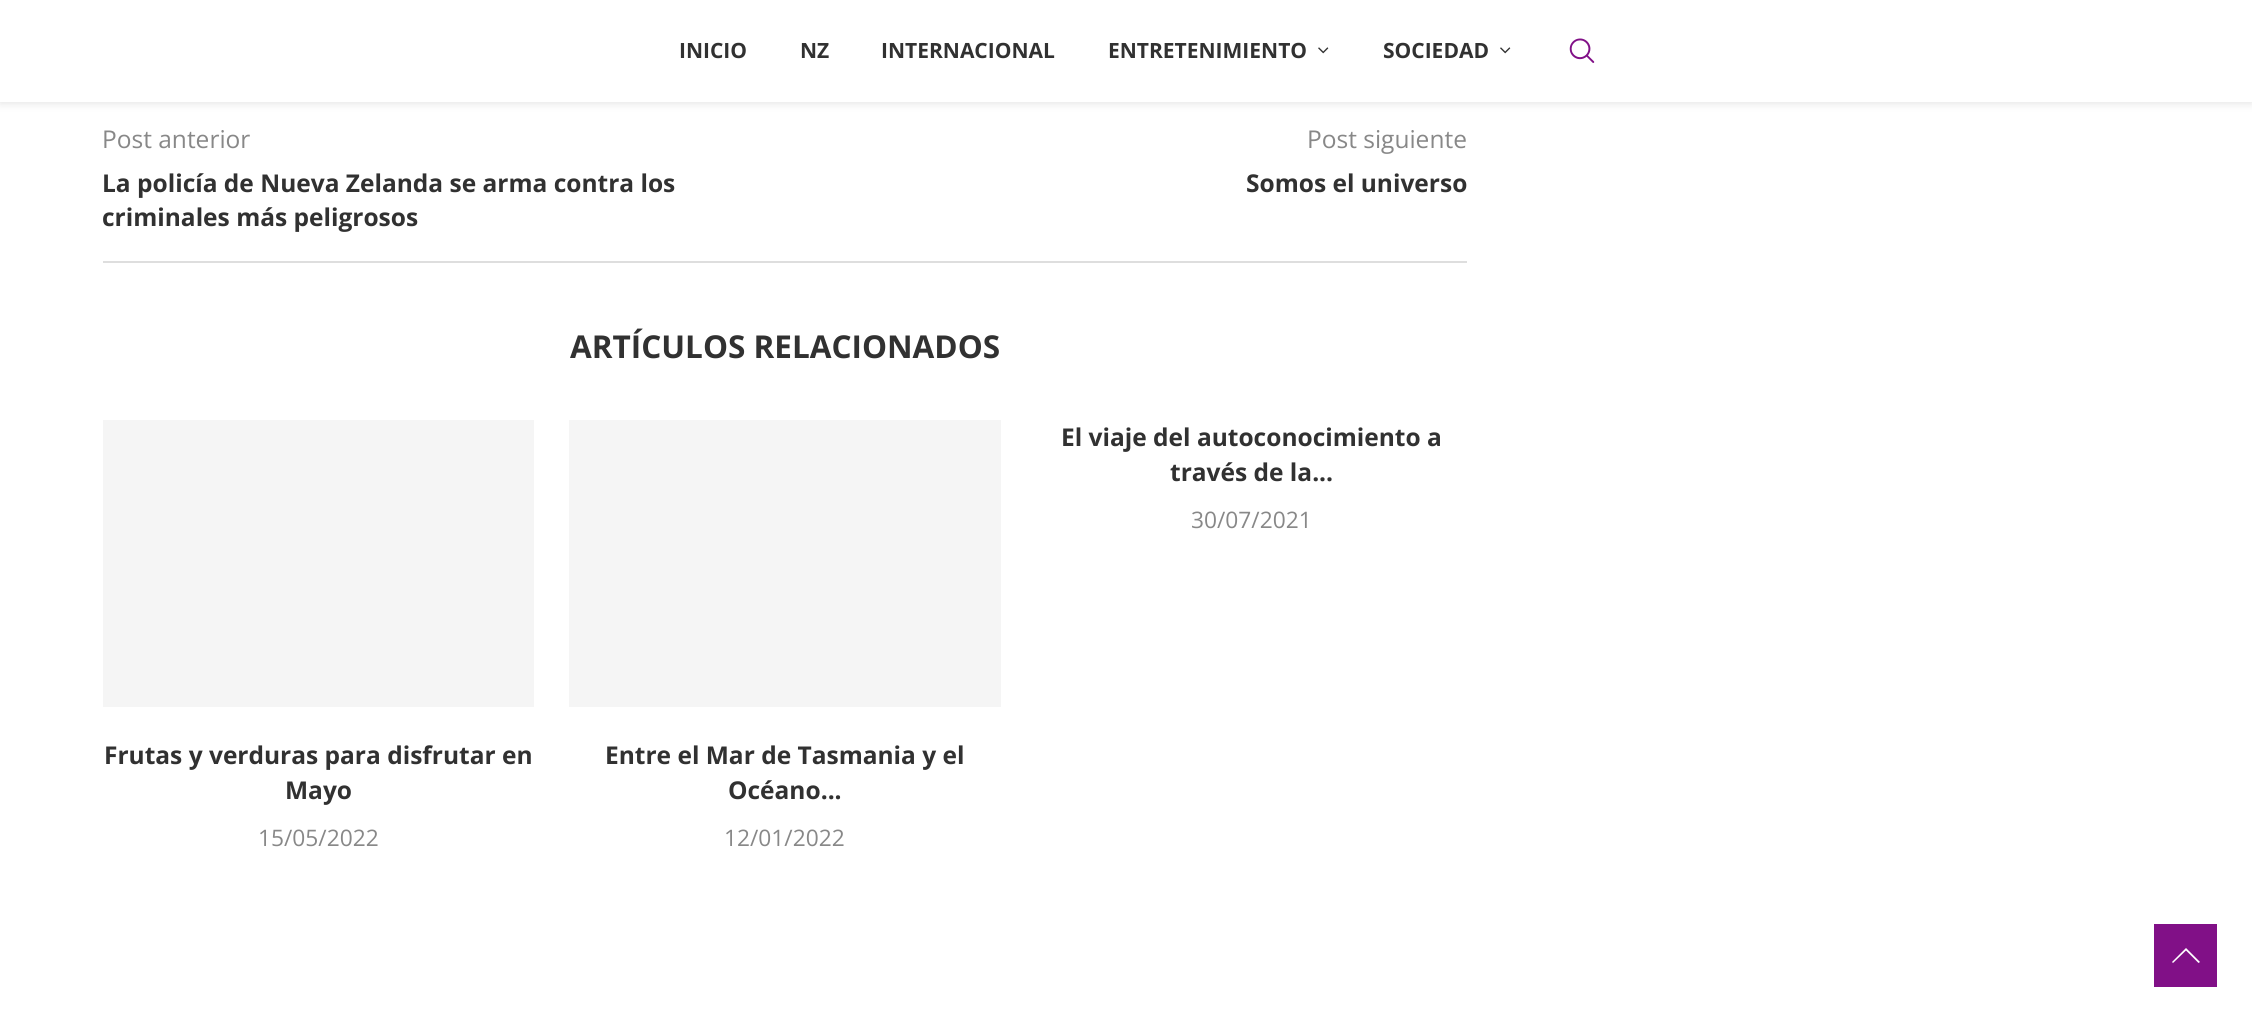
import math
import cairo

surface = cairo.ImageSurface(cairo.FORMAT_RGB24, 2252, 1022)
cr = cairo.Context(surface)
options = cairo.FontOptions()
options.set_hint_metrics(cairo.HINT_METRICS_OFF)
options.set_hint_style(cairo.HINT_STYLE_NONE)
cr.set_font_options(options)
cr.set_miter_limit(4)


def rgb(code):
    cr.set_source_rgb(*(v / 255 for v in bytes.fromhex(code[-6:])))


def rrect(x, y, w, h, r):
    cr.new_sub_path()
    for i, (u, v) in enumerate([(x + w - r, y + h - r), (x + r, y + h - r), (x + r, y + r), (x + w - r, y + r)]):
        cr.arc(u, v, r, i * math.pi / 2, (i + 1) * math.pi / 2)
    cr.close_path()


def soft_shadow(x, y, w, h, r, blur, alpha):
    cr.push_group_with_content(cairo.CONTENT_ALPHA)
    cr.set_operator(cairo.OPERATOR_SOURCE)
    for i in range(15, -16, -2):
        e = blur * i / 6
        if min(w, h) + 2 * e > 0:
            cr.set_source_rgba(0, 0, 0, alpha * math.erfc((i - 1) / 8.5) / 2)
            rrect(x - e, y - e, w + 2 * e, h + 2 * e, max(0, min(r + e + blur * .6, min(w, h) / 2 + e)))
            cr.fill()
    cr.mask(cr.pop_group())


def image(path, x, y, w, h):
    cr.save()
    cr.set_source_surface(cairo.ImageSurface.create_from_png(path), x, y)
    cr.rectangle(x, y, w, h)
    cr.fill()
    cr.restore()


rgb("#ffffff")
cr.paint()
rgb("#bebebe")
soft_shadow(0, 2, 2252, 101, 0, 4.5, 0.46)
rgb("#ffffff")
cr.rectangle(0, 0, 2252, 102)
cr.fill()
image("img/1.png", 1318, 47, 11, 7)
image("img/2.png", 1500, 47, 11, 7)
image("img/3.png", 1569, 38, 26, 25)
for x, y, w, h, color in [
    (103, 261, 1364, 2, "#dedede"),
    (103, 420, 431, 287, "#f5f5f5"),
    (569, 420, 432, 287, "#f5f5f5"),
    (2154, 924, 63, 63, "#811087"),
]:
    rgb(color)
    cr.rectangle(x, y, w, h)
    cr.fill()
rgb("#ffffff")
cr.new_path()
cr.move_to(2186, 948)
cr.line_to(2172, 962)
cr.line_to(2173, 963)
cr.line_to(2186, 950.5)
cr.line_to(2198.5, 963)
cr.line_to(2200, 962)
cr.close_path()
cr.fill()
cr.select_font_face("Open Sans", cairo.FONT_SLANT_NORMAL, cairo.FONT_WEIGHT_BOLD)
cr.set_font_size(21)
rgb("#313131")
for x, y, s in [
    (679, 58, "INICIO"),
    (800, 58, "NZ"),
    (881, 58, "INTERNACIONAL"),
    (1108, 58, "ENTRETENIMIENTO"),
    (1383, 58, "SOCIEDAD"),
]:
    cr.move_to(x, y)
    cr.show_text(s)
cr.select_font_face("Open Sans")
cr.set_font_size(24.5)
rgb("#888888")
cr.move_to(102, 148)
cr.show_text("Post anterior")
cr.select_font_face("Open Sans", cairo.FONT_SLANT_NORMAL, cairo.FONT_WEIGHT_BOLD)
rgb("#313131")
cr.move_to(102, 192)
cr.show_text("La policía de Nueva Zelanda se arma contra los")
cr.move_to(102, 226)
cr.show_text("criminales más peligrosos")
cr.select_font_face("Open Sans")
rgb("#888888")
cr.move_to(1307, 148)
cr.show_text("Post siguiente")
cr.select_font_face("Open Sans", cairo.FONT_SLANT_NORMAL, cairo.FONT_WEIGHT_BOLD)
rgb("#313131")
cr.move_to(1246, 192)
cr.show_text("Somos el universo")
cr.set_font_size(31.5)
cr.move_to(570, 358)
cr.show_text("ARTÍCULOS RELACIONADOS")
cr.set_font_size(24.5)
cr.move_to(1061, 446)
cr.show_text("El viaje del autoconocimiento a")
cr.move_to(1170, 481)
cr.show_text("través de la...")
cr.select_font_face("Open Sans")
cr.set_font_size(22.75)
rgb("#888888")
cr.move_to(1191, 528)
cr.show_text("30/07/2021")
cr.select_font_face("Open Sans", cairo.FONT_SLANT_NORMAL, cairo.FONT_WEIGHT_BOLD)
cr.set_font_size(24.5)
rgb("#313131")
cr.move_to(104, 764)
cr.show_text("Frutas y verduras para disfrutar en")
cr.move_to(285, 799)
cr.show_text("Mayo")
cr.select_font_face("Open Sans")
cr.set_font_size(22.75)
rgb("#888888")
cr.move_to(258, 846)
cr.show_text("15/05/2022")
cr.select_font_face("Open Sans", cairo.FONT_SLANT_NORMAL, cairo.FONT_WEIGHT_BOLD)
cr.set_font_size(24.5)
rgb("#313131")
cr.move_to(605, 764)
cr.show_text("Entre el Mar de Tasmania y el")
cr.move_to(728, 799)
cr.show_text("Océano...")
cr.select_font_face("Open Sans")
cr.set_font_size(22.75)
rgb("#888888")
cr.move_to(724, 846)
cr.show_text("12/01/2022")
surface.write_to_png("page.png")
